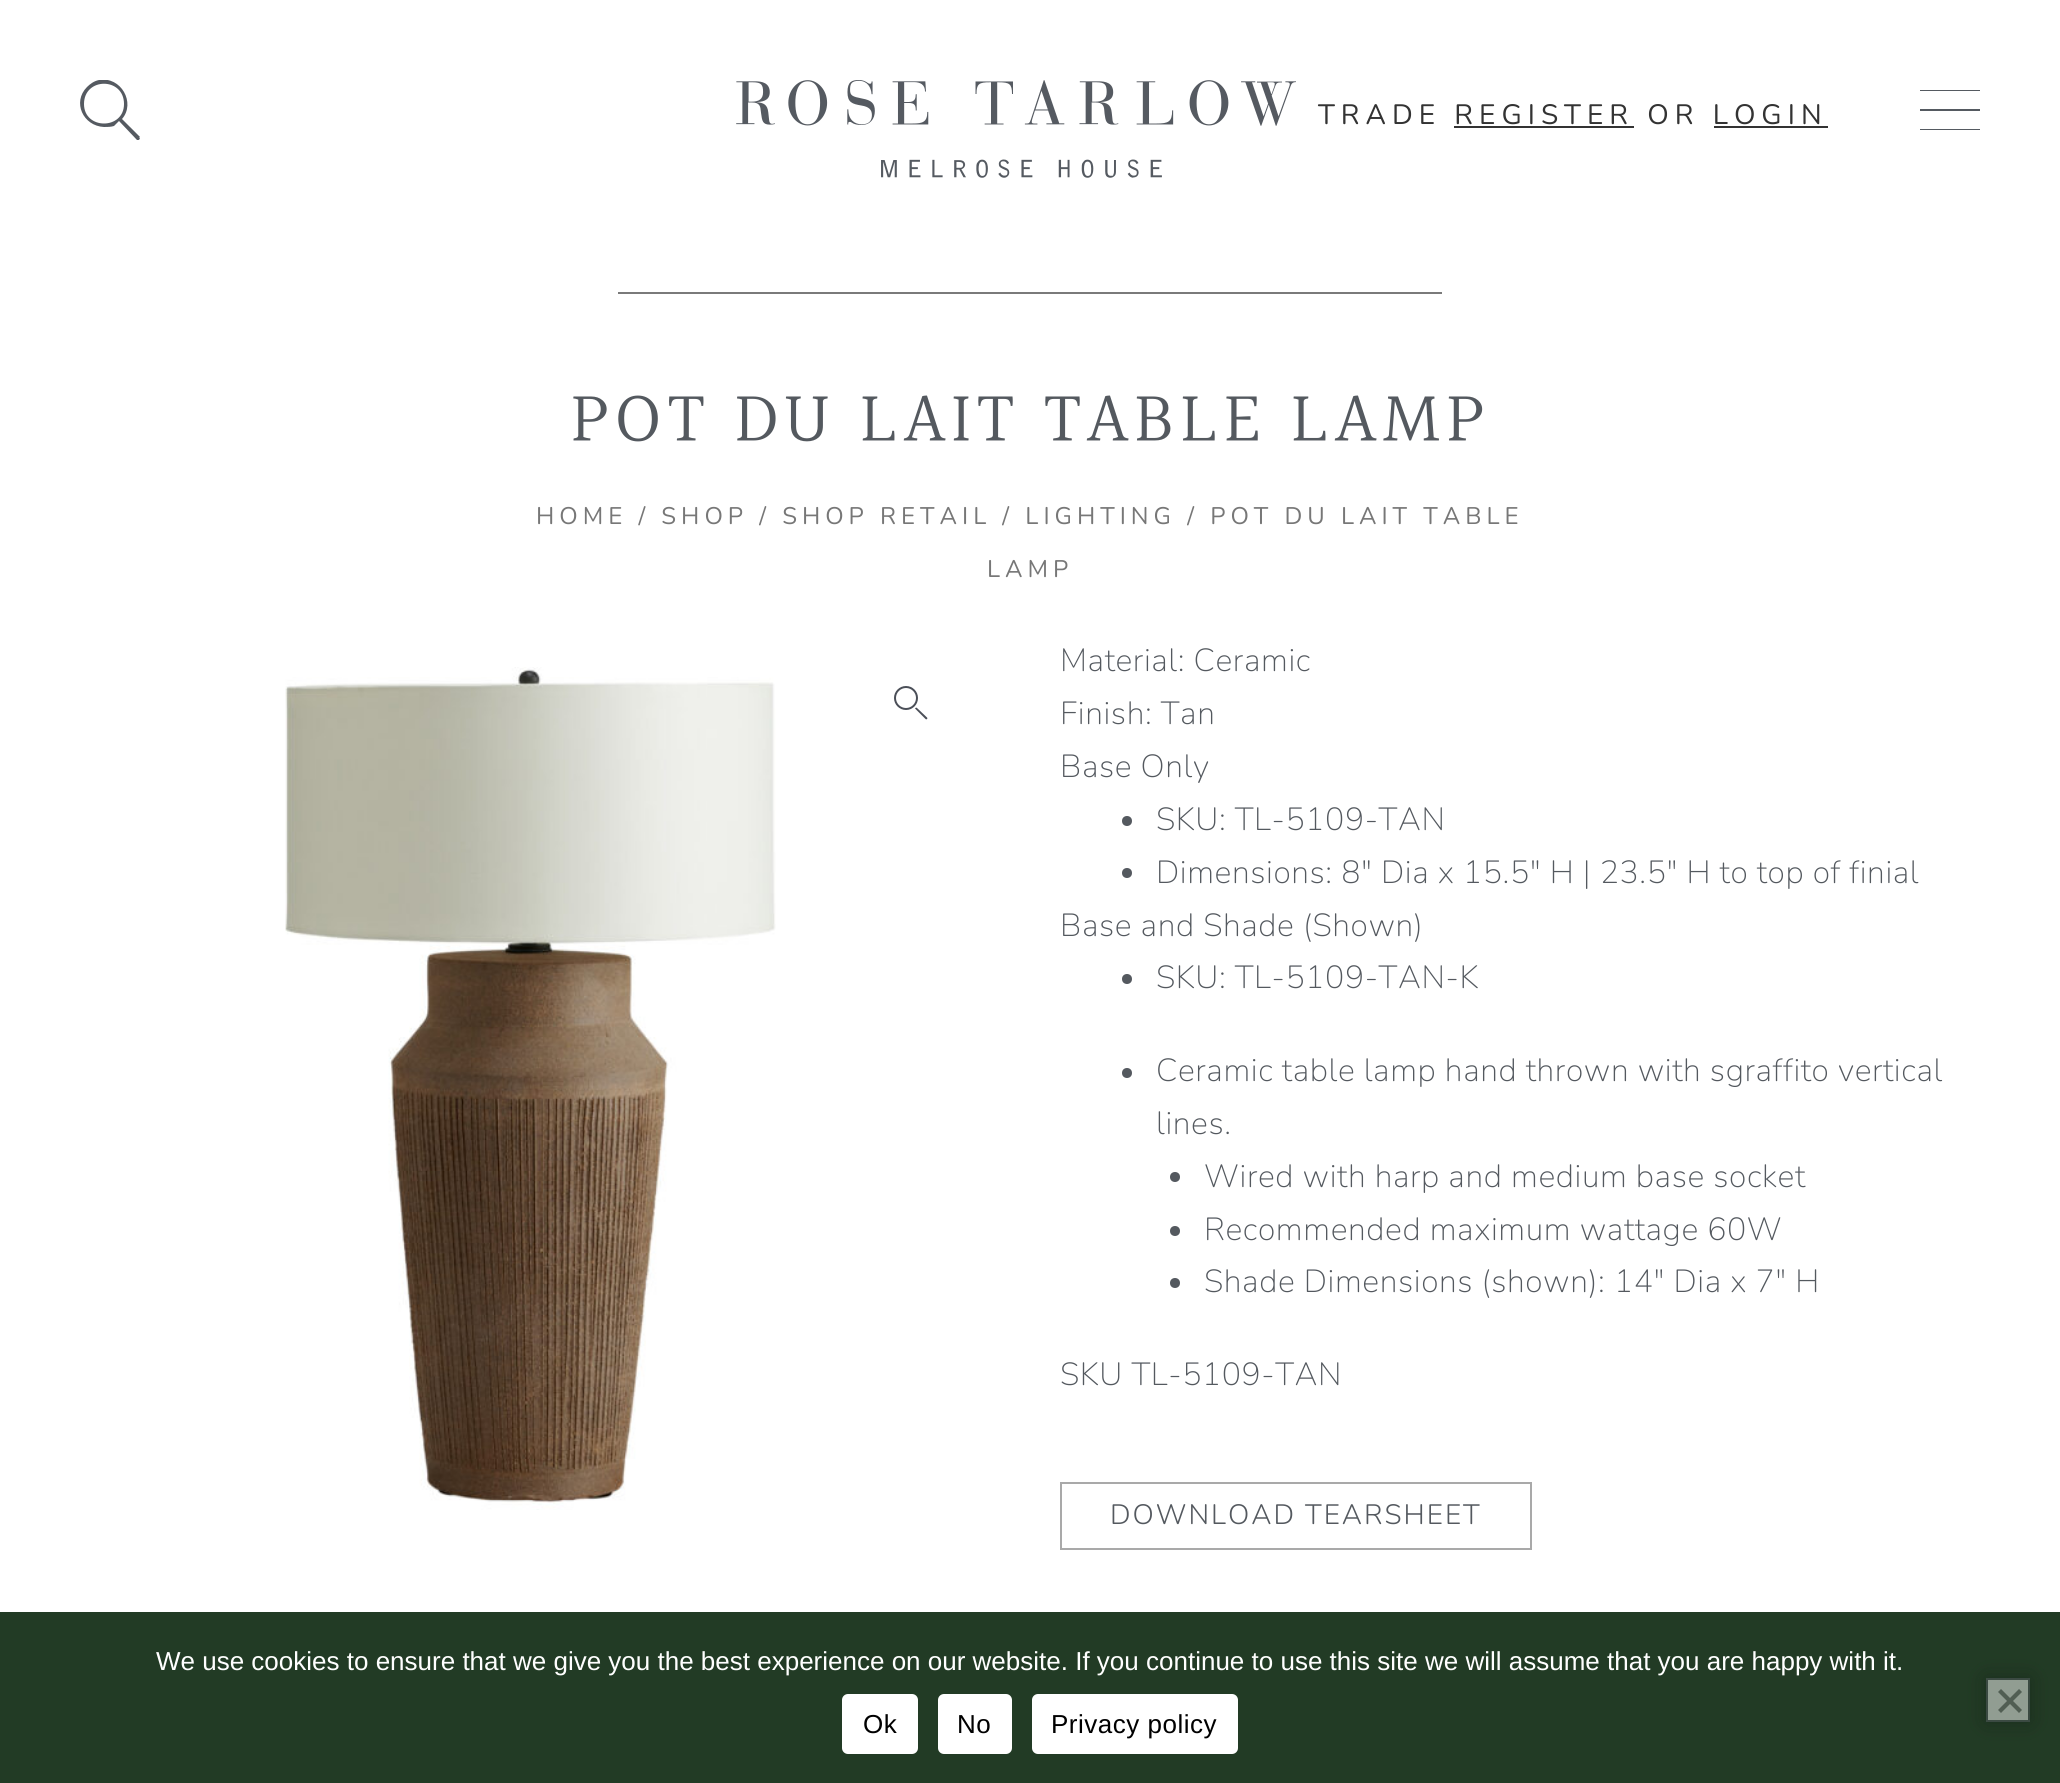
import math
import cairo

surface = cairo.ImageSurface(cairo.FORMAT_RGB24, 2060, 1783)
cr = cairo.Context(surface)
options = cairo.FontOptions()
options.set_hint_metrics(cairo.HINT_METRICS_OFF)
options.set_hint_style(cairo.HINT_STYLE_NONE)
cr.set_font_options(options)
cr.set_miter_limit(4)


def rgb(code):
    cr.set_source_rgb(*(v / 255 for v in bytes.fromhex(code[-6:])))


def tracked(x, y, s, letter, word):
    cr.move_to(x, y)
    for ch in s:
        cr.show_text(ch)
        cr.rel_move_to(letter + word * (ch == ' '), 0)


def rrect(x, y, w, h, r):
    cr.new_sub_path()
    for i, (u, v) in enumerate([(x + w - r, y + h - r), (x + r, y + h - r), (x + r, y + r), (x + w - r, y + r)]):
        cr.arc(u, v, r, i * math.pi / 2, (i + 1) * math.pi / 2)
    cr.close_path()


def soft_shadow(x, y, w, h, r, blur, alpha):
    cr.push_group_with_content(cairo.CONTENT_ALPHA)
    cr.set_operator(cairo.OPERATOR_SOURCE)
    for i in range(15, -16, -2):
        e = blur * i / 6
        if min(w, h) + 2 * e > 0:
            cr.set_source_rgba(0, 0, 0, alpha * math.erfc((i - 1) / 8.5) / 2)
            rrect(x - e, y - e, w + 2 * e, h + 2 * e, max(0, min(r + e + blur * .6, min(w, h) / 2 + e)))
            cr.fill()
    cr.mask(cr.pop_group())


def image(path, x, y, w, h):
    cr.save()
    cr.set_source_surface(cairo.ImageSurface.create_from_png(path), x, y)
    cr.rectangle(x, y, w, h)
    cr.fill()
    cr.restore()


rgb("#ffffff")
cr.paint()
cr.save()
cr.rectangle(80, 80, 60, 60)
cr.clip()
rgb("#555a61")
cr.new_path()
cr.move_to(84, 104)
cr.curve_to(84, 77, 124, 77, 124, 104)
cr.curve_to(124, 130, 84, 130, 84, 104)
cr.move_to(140, 137)
cr.line_to(122, 119)
cr.curve_to(136, 103, 121, 76, 99, 80)
cr.curve_to(94, 81, 90, 84, 87, 87)
cr.curve_to(72, 102, 83, 126, 104, 127)
cr.curve_to(107, 127, 111, 127, 114, 126)
cr.line_to(119, 121)
cr.line_to(137, 140)
cr.curve_to(139, 141, 141, 138, 139, 137)
cr.fill()
cr.restore()
image("img/1.png", 736, 80, 560, 98)
for x, y, w, h, color in [
    (1454, 126, 180, 2, "#333333"),
    (1714, 126, 114, 2, "#333333"),
    (1920, 90, 60, 1, "#555a61"),
    (1920, 129, 60, 1, "#555a61"),
    (1920, 109, 60, 2, "#555a61"),
    (618, 292, 824, 2, "#7a7a7a"),
]:
    rgb(color)
    cr.rectangle(x, y, w, h)
    cr.fill()
image("img/2.png", 285, 667, 491, 843)
cr.arc(906, 698, 11, 0, 2 * math.pi)
rgb("#4b4f58")
cr.stroke()
cr.new_path()
cr.move_to(915.5, 708)
cr.curve_to(916, 707.5, 916.5, 707.5, 917, 708)
cr.line_to(927, 717.5)
cr.curve_to(927.5, 718, 927.5, 718.5, 927, 719)
cr.curve_to(926.5, 719.5, 926, 719.5, 925.5, 719)
cr.line_to(915.5, 709)
cr.curve_to(915, 709, 915, 708, 915.5, 708)
cr.close_path()
cr.fill()
rgb("#54595f")
cr.arc(1127, 821, 5, 0, 2 * math.pi)
cr.fill()
cr.arc(1127, 873, 5, 0, 2 * math.pi)
cr.fill()
cr.arc(1127, 979, 5, 0, 2 * math.pi)
cr.fill()
cr.arc(1127, 1073, 5, 0, 2 * math.pi)
cr.fill()
cr.arc(1175, 1177, 5, 0, 2 * math.pi)
cr.fill()
cr.arc(1175, 1231, 5, 0, 2 * math.pi)
cr.fill()
cr.arc(1175, 1283, 5, 0, 2 * math.pi)
cr.fill()
cr.rectangle(1061, 1483, 470, 66)
rgb("#a9a9a9")
cr.stroke()
rgb("#223b25")
cr.rectangle(0, 1612, 2060, 171)
cr.fill()
rgb("#111e13")
soft_shadow(1986, 1678, 44, 44, 0, 10, 0.5)
rgb("#919d92")
cr.rectangle(1987, 1679, 42, 42)
cr.fill_preserve()
rgb("#3b4a42")
cr.stroke()
rgb("#515e53")
cr.new_path()
cr.move_to(2019, 1689)
cr.line_to(2022, 1692)
cr.line_to(2001, 1713)
cr.line_to(1998, 1710)
cr.close_path()
cr.fill()
cr.new_path()
cr.move_to(1998, 1692)
cr.line_to(2001, 1689)
cr.line_to(2022, 1710)
cr.line_to(2019, 1713)
cr.close_path()
cr.fill()
rgb("#ffffff")
rrect(842, 1694, 76, 60, 6)
cr.fill()
rrect(938, 1694, 74, 60, 6)
cr.fill()
rrect(1032, 1694, 206, 60, 6)
cr.fill()
cr.select_font_face("Nunito")
cr.set_font_size(28)
rgb("#333333")
tracked(1318, 124, "TRADE REGISTER OR LOGIN", 6, 0)
cr.select_font_face("Halant")
cr.set_font_size(72)
rgb("#54595f")
tracked(571, 444, "POT DU LAIT TABLE LAMP", 6, 0)
cr.select_font_face("Nunito")
cr.set_font_size(24)
rgb("#777777")
tracked(536, 524, "HOME / SHOP / SHOP RETAIL / LIGHTING / POT DU LAIT TABLE", 5, 0)
tracked(987, 577, "LAMP", 5, 0)
cr.select_font_face("Nunito ExtraLight")
cr.set_font_size(32)
rgb("#54595f")
for x, y, s in [
    (1060, 671, "Material: Ceramic"),
    (1060, 724, "Finish: Tan"),
    (1060, 777, "Base Only"),
    (1156, 830, "SKU: TL-5109-TAN"),
    (1156, 883, "Dimensions: 8\" Dia x 15.5\" H | 23.5\" H to top of finial"),
    (1060, 936, "Base and Shade (Shown)"),
    (1156, 988, "SKU: TL-5109-TAN-K"),
    (1156, 1081, "Ceramic table lamp hand thrown with sgraffito vertical"),
    (1156, 1134, "lines."),
    (1204, 1187, "Wired with harp and medium base socket"),
    (1204, 1240, "Recommended maximum wattage 60W"),
    (1204, 1292, "Shade Dimensions (shown): 14″ Dia x 7″ H"),
    (1060, 1385, "SKU TL-5109-TAN"),
]:
    tracked(x, y, s, 0.6, 0)
cr.select_font_face("Nunito Light")
cr.set_font_size(28)
tracked(1110, 1524, "DOWNLOAD TEARSHEET", 2, 0)
cr.select_font_face("Liberation Sans")
cr.set_font_size(26)
rgb("#ffffff")
cr.move_to(156, 1670)
cr.show_text("We use cookies to ensure that we give you the best experience on our website. If you continue to use this site we will assume that you are happy with it.")
rgb("#000000")
for x, y, s in [
    (863, 1733, "Ok"),
    (957, 1733, "No"),
    (1051, 1733, "Privacy policy"),
]:
    tracked(x, y, s, 0.5, 0)
surface.write_to_png("page.png")
